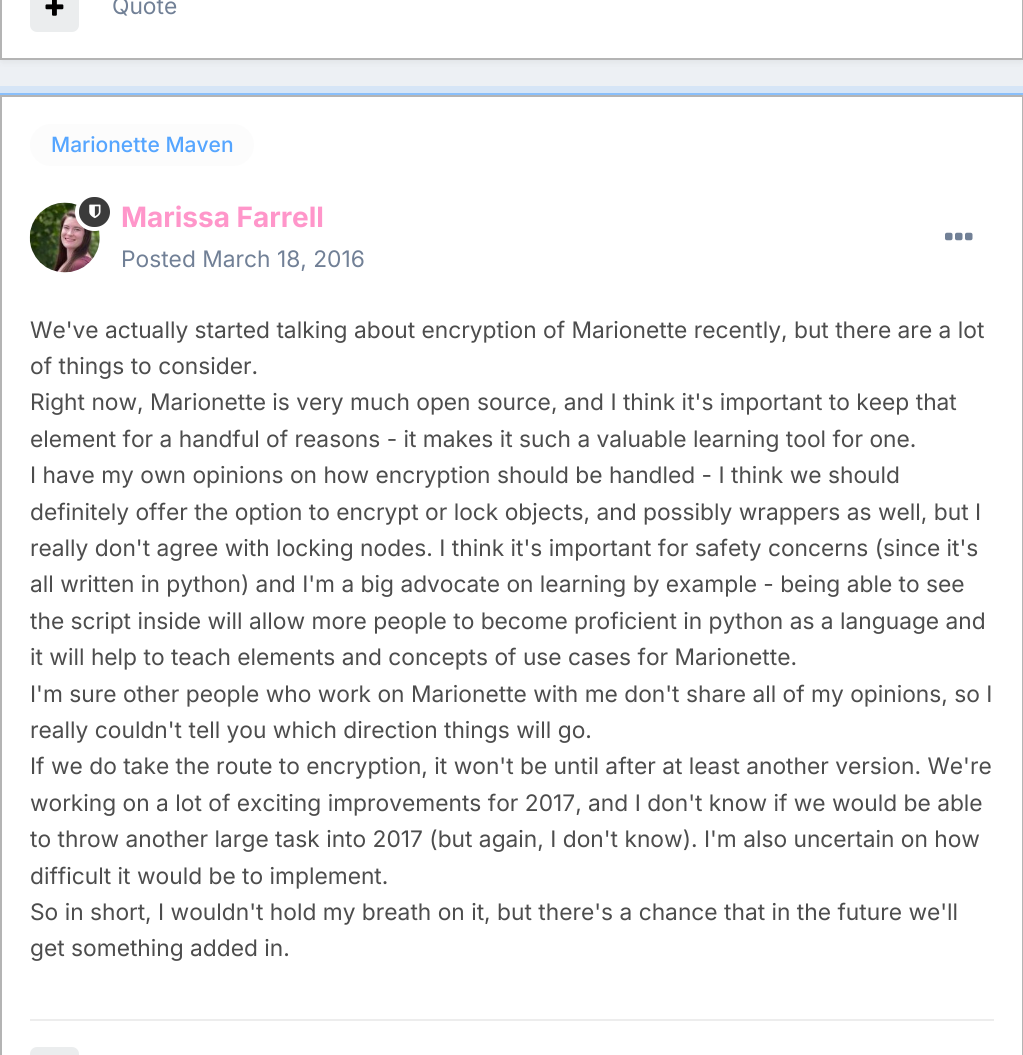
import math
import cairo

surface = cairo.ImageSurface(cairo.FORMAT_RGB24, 1023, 1055)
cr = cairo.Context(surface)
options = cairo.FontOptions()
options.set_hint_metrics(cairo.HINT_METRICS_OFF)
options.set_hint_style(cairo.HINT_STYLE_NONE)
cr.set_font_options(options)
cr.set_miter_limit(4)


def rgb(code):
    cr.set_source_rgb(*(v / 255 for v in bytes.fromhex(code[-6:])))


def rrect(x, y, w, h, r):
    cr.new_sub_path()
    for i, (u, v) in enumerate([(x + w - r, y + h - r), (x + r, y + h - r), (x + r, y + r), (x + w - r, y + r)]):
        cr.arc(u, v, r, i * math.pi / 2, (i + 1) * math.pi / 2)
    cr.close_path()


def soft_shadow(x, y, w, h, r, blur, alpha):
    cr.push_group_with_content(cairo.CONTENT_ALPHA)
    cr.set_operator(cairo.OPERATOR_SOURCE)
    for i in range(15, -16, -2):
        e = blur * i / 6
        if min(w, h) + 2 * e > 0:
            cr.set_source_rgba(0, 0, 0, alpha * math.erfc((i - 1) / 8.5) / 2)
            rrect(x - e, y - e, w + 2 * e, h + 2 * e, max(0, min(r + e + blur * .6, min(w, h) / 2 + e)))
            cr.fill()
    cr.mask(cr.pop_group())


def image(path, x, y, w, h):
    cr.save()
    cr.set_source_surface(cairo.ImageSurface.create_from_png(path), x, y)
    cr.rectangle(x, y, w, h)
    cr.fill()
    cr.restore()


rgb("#edf0f4")
cr.paint()
rgb("#3b3b3b")
soft_shadow(2, -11, 1020, 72, 0, 3.5, 0.1)
rgb("#ffffff")
cr.rectangle(1, -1, 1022, 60)
cr.fill_preserve()
rgb("#b4b4b4")
cr.stroke()
rgb("#ebedee")
rrect(30, -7, 49, 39, 7)
cr.fill()
image("img/1.png", 45, 0, 19, 16)
cr.rectangle(-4.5, 90.5, 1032, 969)
rgb("#d6e5f6")
cr.set_line_width(9)
cr.stroke()
cr.rectangle(-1, 94, 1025, 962)
rgb("#89bffb")
cr.set_line_width(2)
cr.stroke()
rgb("#ffffff")
cr.rectangle(1, 96, 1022, 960)
cr.fill_preserve()
rgb("#b4b4b4")
cr.stroke()
rgb("#fcfcfc")
rrect(30, 124, 224, 42, 21)
cr.fill()
image("img/3.png", 29, 202, 71, 71)
rgb("#3b3b3b")
rrect(77, 195, 35, 34, 17)
cr.fill_preserve()
rgb("#ffffff")
cr.set_line_width(4)
cr.stroke()
image("img/2.png", 89, 204, 12, 15)
image("img/4.png", 945, 232, 28, 9)
rgb("#ededed")
cr.rectangle(30, 1019, 964, 2)
cr.fill()
rgb("#ebedee")
rrect(30, 1047, 49, 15, 7)
cr.fill()
cr.select_font_face("Inter")
cr.set_font_size(22.75)
rgb("#718096")
cr.move_to(112, 14)
cr.show_text("Quote")
cr.select_font_face("Inter Medium")
cr.set_font_size(21)
rgb("#55a5ff")
cr.move_to(51, 152)
cr.show_text("Marionette Maven")
cr.select_font_face("Inter", cairo.FONT_SLANT_NORMAL, cairo.FONT_WEIGHT_BOLD)
cr.set_font_size(28)
rgb("#ff96ca")
cr.move_to(121, 227)
cr.show_text("Marissa Farrell")
cr.select_font_face("Inter")
cr.set_font_size(22.75)
rgb("#718096")
cr.move_to(121, 267)
cr.show_text("Posted March 18, 2016")
rgb("#4d4d4d")
for x, y, s in [
    (30, 338, "We've actually started talking about encryption of Marionette recently, but there are a lot"),
    (30, 374, "of things to consider."),
    (30, 410, "Right now, Marionette is very much open source, and I think it's important to keep that"),
    (30, 447, "element for a handful of reasons - it makes it such a valuable learning tool for one."),
    (30, 483, "I have my own opinions on how encryption should be handled - I think we should"),
    (30, 520, "definitely offer the option to encrypt or lock objects, and possibly wrappers as well, but I"),
    (30, 556, "really don't agree with locking nodes. I think it's important for safety concerns (since it's"),
    (30, 592, "all written in python) and I'm a big advocate on learning by example - being able to see"),
    (30, 629, "the script inside will allow more people to become proficient in python as a language and"),
    (30, 665, "it will help to teach elements and concepts of use cases for Marionette."),
    (30, 702, "I'm sure other people who work on Marionette with me don't share all of my opinions, so I"),
    (30, 738, "really couldn't tell you which direction things will go."),
    (30, 774, "If we do take the route to encryption, it won't be until after at least another version. We're"),
    (30, 811, "working on a lot of exciting improvements for 2017, and I don't know if we would be able"),
    (30, 847, "to throw another large task into 2017 (but again, I don't know). I'm also uncertain on how"),
    (30, 884, "difficult it would be to implement."),
    (30, 920, "So in short, I wouldn't hold my breath on it, but there's a chance that in the future we'll"),
    (30, 956, "get something added in."),
]:
    cr.move_to(x, y)
    cr.show_text(s)
surface.write_to_png("page.png")
